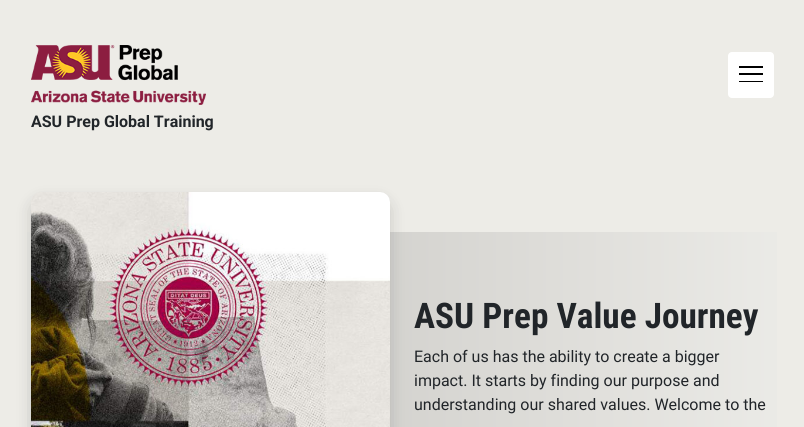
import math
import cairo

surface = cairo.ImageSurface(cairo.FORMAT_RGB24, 804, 427)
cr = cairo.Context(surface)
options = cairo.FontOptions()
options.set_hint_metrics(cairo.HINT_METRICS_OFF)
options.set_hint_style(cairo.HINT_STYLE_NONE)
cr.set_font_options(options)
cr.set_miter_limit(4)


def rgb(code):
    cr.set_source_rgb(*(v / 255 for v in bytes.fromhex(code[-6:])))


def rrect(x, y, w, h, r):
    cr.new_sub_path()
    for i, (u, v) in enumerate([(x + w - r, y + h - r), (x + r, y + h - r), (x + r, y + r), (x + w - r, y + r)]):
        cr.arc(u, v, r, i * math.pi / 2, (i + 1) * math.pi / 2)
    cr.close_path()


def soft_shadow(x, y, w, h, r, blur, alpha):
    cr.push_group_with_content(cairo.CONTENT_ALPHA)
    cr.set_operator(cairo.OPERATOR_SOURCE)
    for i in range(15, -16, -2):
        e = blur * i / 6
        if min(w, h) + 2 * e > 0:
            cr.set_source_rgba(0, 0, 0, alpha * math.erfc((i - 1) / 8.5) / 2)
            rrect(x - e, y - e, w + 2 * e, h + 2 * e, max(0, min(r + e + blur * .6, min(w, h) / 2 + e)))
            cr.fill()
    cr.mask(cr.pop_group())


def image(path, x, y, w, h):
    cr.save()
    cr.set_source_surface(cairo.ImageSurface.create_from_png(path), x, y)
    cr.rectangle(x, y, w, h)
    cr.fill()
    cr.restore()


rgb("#edece7")
cr.paint()
image("img/1.png", 31, 45, 175, 60)
rgb("#ffffff")
rrect(728, 52, 46, 46, 4)
cr.fill()
for x, y, w, h, color in [
    (739, 66, 24, 2, "#000000"),
    (739, 73, 24, 2, "#000000"),
    (739, 81, 24, 1, "#000000"),
]:
    rgb(color)
    cr.rectangle(x, y, w, h)
    cr.fill()
gradient = cairo.LinearGradient(0, 392, 804, 392)
gradient.add_color_stop_rgba(0, 0.925, 0.925, 0.91, 1)
gradient.add_color_stop_rgba(0.25, 0.882, 0.878, 0.863, 1)
gradient.add_color_stop_rgba(0.5, 0.835, 0.831, 0.816, 1)
gradient.add_color_stop_rgba(0.75, 0.882, 0.878, 0.863, 1)
gradient.add_color_stop_rgba(1, 0.925, 0.925, 0.91, 1)
cr.set_source(gradient)
cr.rectangle(27, 232, 750, 195)
cr.fill()
rgb("#000000")
soft_shadow(31, 200, 359, 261, 10, 8, 0.15)
image("img/2.png", 31, 192, 359, 235)
cr.select_font_face("Roboto", cairo.FONT_SLANT_NORMAL, cairo.FONT_WEIGHT_BOLD)
cr.set_font_size(16)
rgb("#212529")
cr.move_to(31, 127)
cr.show_text("ASU Prep Global Training")
cr.select_font_face("Roboto Condensed", cairo.FONT_SLANT_NORMAL, cairo.FONT_WEIGHT_BOLD)
cr.set_font_size(35.25)
cr.move_to(414, 328)
cr.show_text("ASU Prep Value Journey")
cr.select_font_face("Roboto")
cr.set_font_size(16)
for x, y, s in [
    (414, 362, "Each of us has the ability to create a bigger"),
    (414, 386, "impact. It starts by finding our purpose and"),
    (414, 410, "understanding our shared values. Welcome to the"),
]:
    cr.move_to(x, y)
    cr.show_text(s)
surface.write_to_png("page.png")
